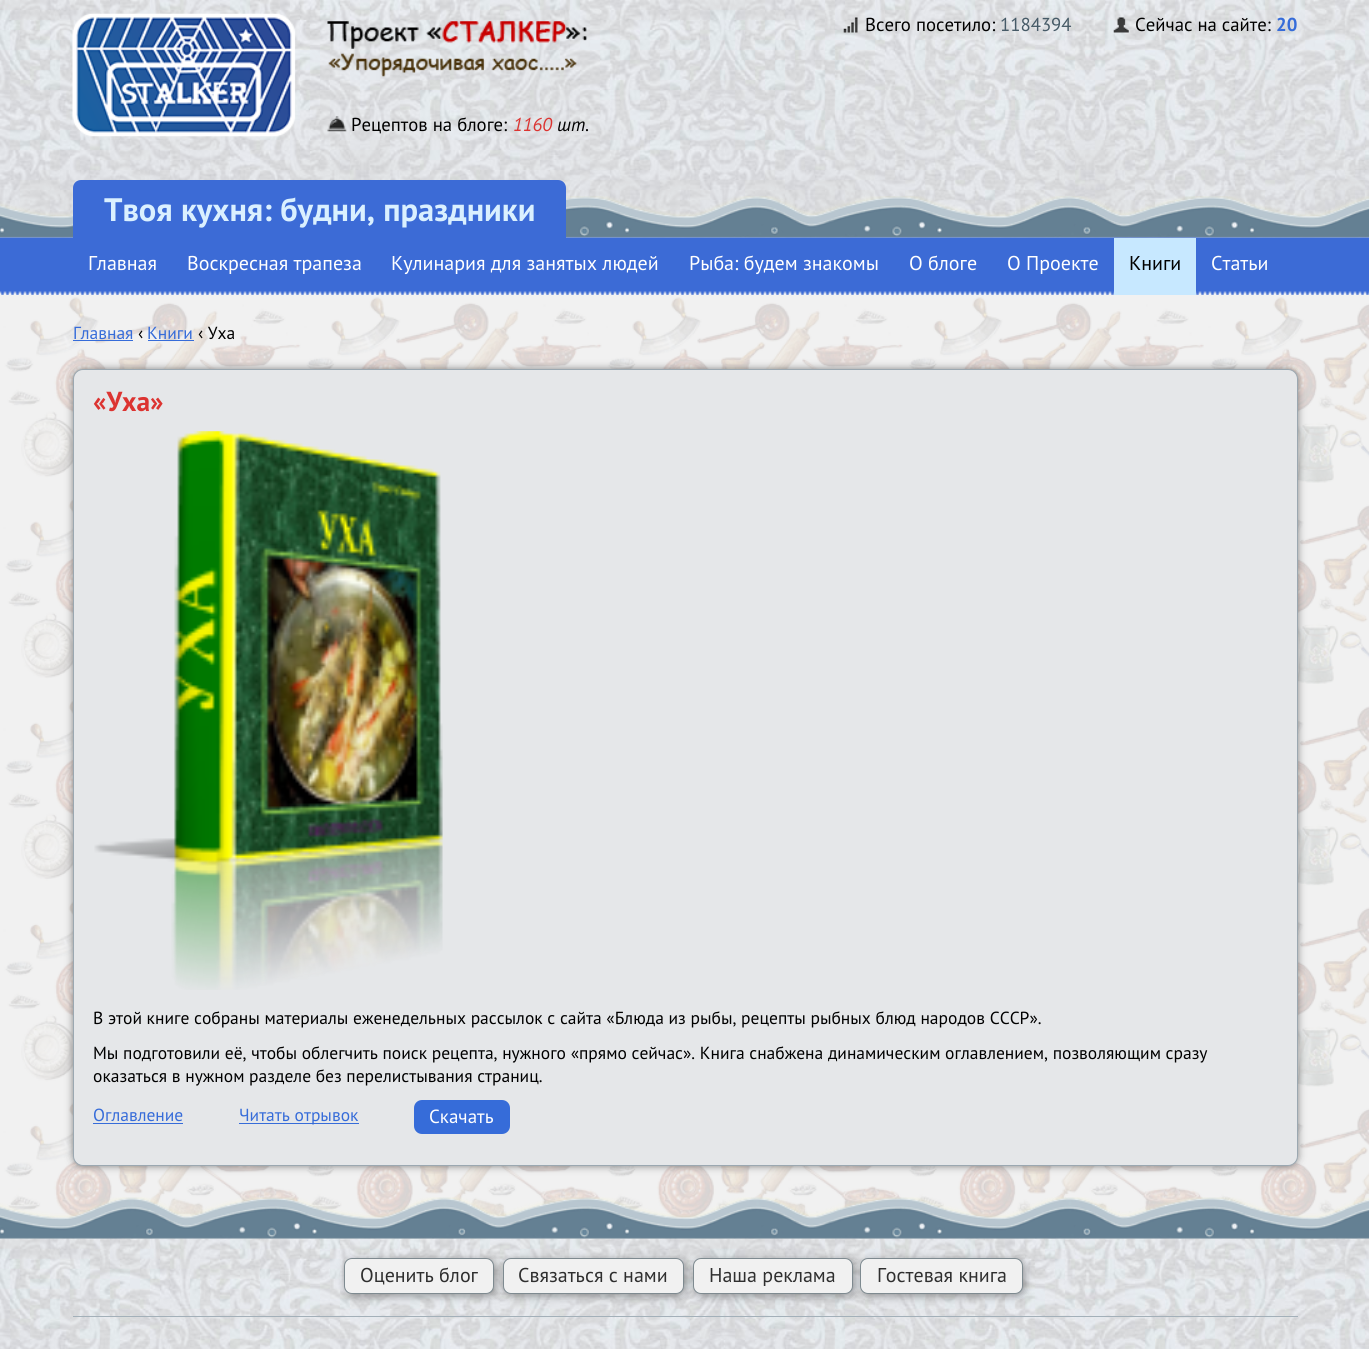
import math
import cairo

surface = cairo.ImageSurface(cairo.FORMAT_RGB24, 1369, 1349)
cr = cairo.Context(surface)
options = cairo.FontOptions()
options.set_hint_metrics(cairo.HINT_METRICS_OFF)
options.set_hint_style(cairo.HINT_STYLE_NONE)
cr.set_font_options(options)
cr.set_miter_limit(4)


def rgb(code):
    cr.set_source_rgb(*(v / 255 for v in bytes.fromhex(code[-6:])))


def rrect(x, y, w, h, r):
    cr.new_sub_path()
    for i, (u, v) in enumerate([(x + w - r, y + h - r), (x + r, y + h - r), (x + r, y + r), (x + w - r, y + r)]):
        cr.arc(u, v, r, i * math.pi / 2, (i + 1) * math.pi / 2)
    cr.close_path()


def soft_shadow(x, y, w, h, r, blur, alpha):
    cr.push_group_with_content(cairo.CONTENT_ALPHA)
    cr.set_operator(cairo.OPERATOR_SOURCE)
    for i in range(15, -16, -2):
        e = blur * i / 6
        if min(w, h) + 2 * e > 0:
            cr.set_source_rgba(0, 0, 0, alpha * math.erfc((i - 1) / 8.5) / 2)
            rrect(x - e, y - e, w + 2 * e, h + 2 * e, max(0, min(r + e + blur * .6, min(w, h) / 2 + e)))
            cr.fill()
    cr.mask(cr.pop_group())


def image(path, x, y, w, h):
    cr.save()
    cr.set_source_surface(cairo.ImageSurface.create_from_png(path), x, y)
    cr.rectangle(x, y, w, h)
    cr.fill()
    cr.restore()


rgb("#ffffff")
cr.paint()
image("img/1.png", 0, 0, 1369, 238)
image("img/2.png", 0, 196, 1369, 42)
image("img/3.png", 72, 13, 224, 124)
image("img/4.png", 843, 17, 15, 16)
image("img/5.png", 1113, 17, 16, 16)
image("img/6.png", 327, 21, 261, 56)
image("img/7.png", 327, 116, 20, 16)
image("img/8.png", 0, 237, 1369, 58)
rgb("#3c6bd6")
cr.new_path()
cr.move_to(81, 180)
cr.line_to(558, 180)
cr.curve_to(562.5, 180, 566, 183.5, 566, 188)
cr.line_to(566, 238)
cr.line_to(73, 238)
cr.line_to(73, 188)
cr.curve_to(73, 183.5, 76.5, 180, 81, 180)
cr.close_path()
cr.fill()
rgb("#c7e8ff")
cr.rectangle(1114, 238, 82, 57)
cr.fill()
image("img/9.png", 0, 295, 1369, 944)
rgb("#366cd9")
cr.rectangle(73, 340, 60, 1)
cr.fill()
cr.rectangle(148, 340, 46, 1)
cr.fill()
rgb("#323232")
soft_shadow(73, 369, 1225, 797, 10, 4, 0.58)
rgb("#e5e7e9")
rrect(73.5, 369.5, 1224, 796, 9.5)
cr.fill_preserve()
rgb("#9ba8b1")
cr.set_line_width(1)
cr.stroke()
image("img/10.png", 94, 431, 349, 559)
rgb("#366cd9")
cr.rectangle(93, 1123, 90, 1)
cr.fill()
cr.rectangle(239, 1123, 120, 1)
cr.fill()
rrect(414, 1100, 96, 34, 8)
cr.fill()
image("img/11.png", 0, 1197, 1369, 42)
image("img/12.png", 0, 1238, 1369, 111)
rgb("#a3b0b9")
cr.rectangle(73, 1316, 1225, 1)
cr.fill()
rgb("#323232")
soft_shadow(346, 1260, 150, 36, 8, 4.5, 0.48)
rgb("#f1f1f1")
rrect(344.5, 1258.5, 149, 35, 7.5)
cr.fill_preserve()
rgb("#7e8a90")
cr.stroke()
rgb("#323232")
soft_shadow(505, 1260, 181, 36, 8, 4.5, 0.48)
rgb("#f1f1f1")
rrect(503.5, 1258.5, 180, 35, 7.5)
cr.fill_preserve()
rgb("#7e8a90")
cr.stroke()
rgb("#323232")
soft_shadow(695, 1260, 160, 36, 8, 4.5, 0.48)
rgb("#f1f1f1")
rrect(693.5, 1258.5, 159, 35, 7.5)
cr.fill_preserve()
rgb("#7e8a90")
cr.stroke()
rgb("#323232")
soft_shadow(863, 1260, 162, 36, 8, 4.5, 0.48)
rgb("#f1f1f1")
rrect(860.5, 1258.5, 162, 35, 7.5)
cr.fill_preserve()
rgb("#7e8a90")
cr.stroke()
cr.select_font_face("PT Sans")
cr.set_font_size(18.75)
rgb("#000000")
cr.move_to(865, 31)
cr.show_text("Всего посетило:")
rgb("#465a67")
cr.move_to(1000, 31)
cr.show_text("1184394")
rgb("#000000")
cr.move_to(1135, 31)
cr.show_text("Сейчас на сайте:")
cr.select_font_face("PT Sans", cairo.FONT_SLANT_NORMAL, cairo.FONT_WEIGHT_BOLD)
rgb("#366cd9")
cr.move_to(1276, 31)
cr.show_text("20")
cr.select_font_face("PT Sans")
rgb("#000000")
cr.move_to(351, 131)
cr.show_text("Рецептов на блоге:")
cr.select_font_face("PT Sans", cairo.FONT_SLANT_ITALIC)
rgb("#dc3431")
cr.move_to(513, 131)
cr.show_text("1160")
rgb("#000000")
cr.move_to(557, 131)
cr.show_text("шт.")
cr.select_font_face("PT Sans", cairo.FONT_SLANT_NORMAL, cairo.FONT_WEIGHT_BOLD)
cr.set_font_size(32.5)
rgb("#daf0ff")
cr.move_to(104, 221)
cr.show_text("Твоя кухня: будни, праздники")
cr.select_font_face("PT Sans")
cr.set_font_size(20)
rgb("#ffffff")
for x, y, s in [
    (88, 270, "Главная"),
    (187, 270, "Воскресная трапеза"),
    (391, 270, "Кулинария для занятых людей"),
    (689, 270, "Рыба: будем знакомы"),
    (909, 270, "О блоге"),
    (1007, 270, "О Проекте"),
]:
    cr.move_to(x, y)
    cr.show_text(s)
rgb("#000000")
cr.move_to(1129, 270)
cr.show_text("Книги")
rgb("#ffffff")
cr.move_to(1211, 270)
cr.show_text("Статьи")
cr.set_font_size(17.5)
rgb("#366cd9")
cr.move_to(73, 339)
cr.show_text("Главная")
rgb("#000000")
cr.move_to(138, 339)
cr.show_text("‹")
rgb("#366cd9")
cr.move_to(147, 339)
cr.show_text("Книги")
rgb("#000000")
cr.move_to(198, 339)
cr.show_text("‹ Уха")
cr.select_font_face("PT Sans", cairo.FONT_SLANT_NORMAL, cairo.FONT_WEIGHT_BOLD)
cr.set_font_size(27.5)
rgb("#dc3431")
cr.move_to(93, 411)
cr.show_text("«Уха»")
cr.select_font_face("PT Sans")
cr.set_font_size(17.5)
rgb("#000000")
for x, y, s in [
    (93, 1024, "В этой книге собраны материалы еженедельных рассылок с сайта «Блюда из рыбы, рецепты рыбных блюд народов СССР»."),
    (93, 1059, "Мы подготовили её, чтобы облегчить поиск рецепта, нужного «прямо сейчас». Книга снабжена динамическим оглавлением, позволяющим сразу"),
    (93, 1082, "оказаться в нужном разделе без перелистывания страниц."),
]:
    cr.move_to(x, y)
    cr.show_text(s)
rgb("#366cd9")
cr.move_to(93, 1121)
cr.show_text("Оглавление")
cr.move_to(239, 1121)
cr.show_text("Читать отрывок")
cr.set_font_size(19)
rgb("#ffffff")
cr.move_to(429, 1123)
cr.show_text("Скачать")
cr.set_font_size(20)
rgb("#2f2f2f")
for x, y, s in [
    (360, 1282, "Оценить блог"),
    (518, 1282, "Связаться с нами"),
    (709, 1282, "Наша реклама"),
    (877, 1282, "Гостевая книга"),
]:
    cr.move_to(x, y)
    cr.show_text(s)
surface.write_to_png("page.png")
